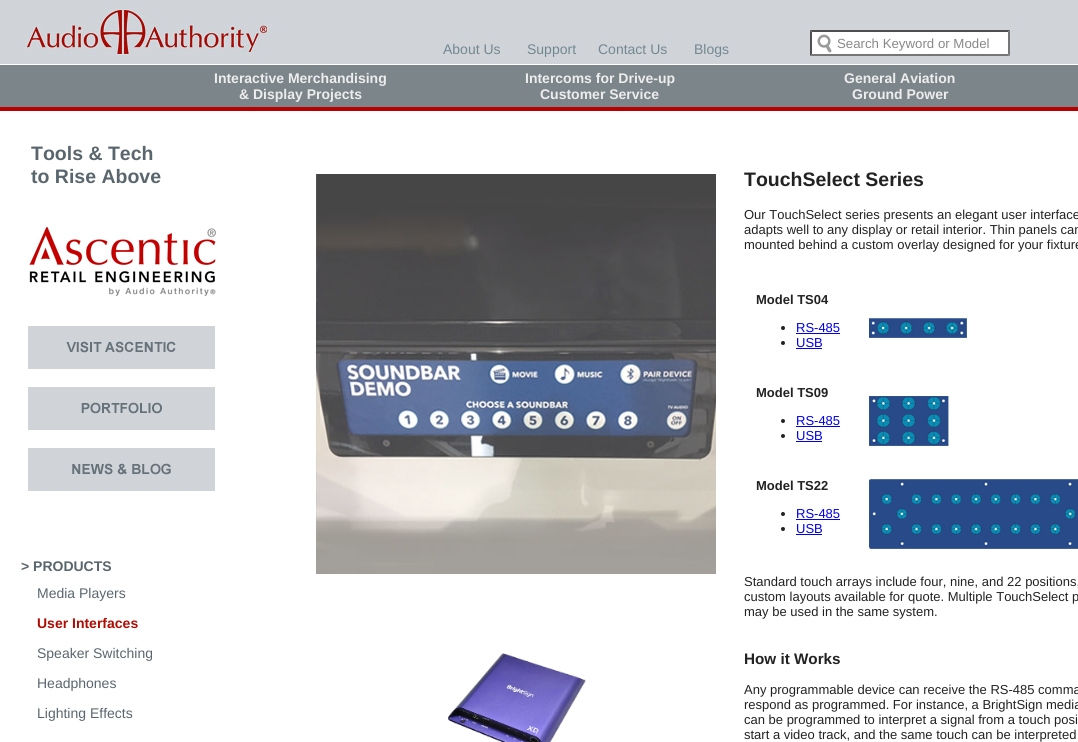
import math
import cairo

surface = cairo.ImageSurface(cairo.FORMAT_RGB24, 1078, 742)
cr = cairo.Context(surface)
options = cairo.FontOptions()
options.set_hint_metrics(cairo.HINT_METRICS_OFF)
options.set_hint_style(cairo.HINT_STYLE_NONE)
cr.set_font_options(options)
cr.set_miter_limit(4)


def rgb(code):
    cr.set_source_rgb(*(v / 255 for v in bytes.fromhex(code[-6:])))


def image(path, x, y, w, h):
    cr.save()
    cr.set_source_surface(cairo.ImageSurface.create_from_png(path), x, y)
    cr.rectangle(x, y, w, h)
    cr.fill()
    cr.restore()


rgb("#ffffff")
cr.paint()
rgb("#d0d4d9")
cr.rectangle(0, 0, 1078, 64)
cr.fill()
image("img/1.png", 25, 8, 248, 48)
rgb("#ffffff")
cr.rectangle(810, 30, 200, 26)
cr.fill()
image("img/2.png", 817, 34, 15, 19)
rgb("#4f4f4f")
cr.new_path()
cr.move_to(810, 30)
cr.line_to(1010, 30)
cr.line_to(1008, 32)
cr.line_to(812, 32)
cr.close_path()
cr.fill()
rgb("#767676")
cr.new_path()
cr.move_to(1010, 30)
cr.line_to(1010, 56)
cr.line_to(1008, 54)
cr.line_to(1008, 32)
cr.close_path()
cr.fill()
cr.new_path()
cr.move_to(1010, 56)
cr.line_to(810, 56)
cr.line_to(812, 54)
cr.line_to(1008, 54)
cr.close_path()
cr.fill()
rgb("#4f4f4f")
cr.new_path()
cr.move_to(810, 56)
cr.line_to(810, 30)
cr.line_to(812, 32)
cr.line_to(812, 54)
cr.close_path()
cr.fill()
rgb("#7b858a")
cr.rectangle(0, 65, 1078, 42)
cr.fill()
rgb("#b90000")
cr.rectangle(0, 107, 1078, 4)
cr.fill()
image("img/3.png", 29, 227, 187, 69)
image("img/4.png", 28, 326, 187, 43)
image("img/5.png", 28, 387, 187, 43)
image("img/6.png", 28, 448, 187, 43)
image("img/7.png", 316, 174, 400, 400)
image("img/8.png", 447, 653, 139, 89)
rgb("#222222")
cr.arc(783, 328, 2, 0, 2 * math.pi)
cr.fill()
rgb("#0000ee")
cr.rectangle(796, 333, 44, 1)
cr.fill()
rgb("#222222")
cr.arc(783, 343, 2, 0, 2 * math.pi)
cr.fill()
rgb("#0000ee")
cr.rectangle(796, 348, 26, 1)
cr.fill()
image("img/9.png", 869, 318, 98, 20)
rgb("#222222")
cr.arc(783, 421, 2, 0, 2 * math.pi)
cr.fill()
rgb("#0000ee")
cr.rectangle(796, 426, 44, 1)
cr.fill()
rgb("#222222")
cr.arc(783, 436, 2, 0, 2 * math.pi)
cr.fill()
rgb("#0000ee")
cr.rectangle(796, 441, 26, 1)
cr.fill()
image("img/10.png", 869, 396, 80, 50)
rgb("#222222")
cr.arc(783, 514, 2, 0, 2 * math.pi)
cr.fill()
rgb("#0000ee")
cr.rectangle(796, 519, 44, 1)
cr.fill()
rgb("#222222")
cr.arc(783, 529, 2, 0, 2 * math.pi)
cr.fill()
rgb("#0000ee")
cr.rectangle(796, 534, 26, 1)
cr.fill()
image("img/11.png", 869, 479, 209, 70)
cr.select_font_face("Liberation Sans")
cr.set_font_size(14)
rgb("#738791")
for x, y, s in [
    (443, 54, "About Us"),
    (527, 54, "Support"),
    (598, 54, "Contact Us"),
    (694, 54, "Blogs"),
]:
    cr.move_to(x, y)
    cr.show_text(s)
cr.set_font_size(13.25)
rgb("#888888")
cr.move_to(837, 48)
cr.show_text("Search Keyword or Model")
cr.select_font_face("Liberation Sans", cairo.FONT_SLANT_NORMAL, cairo.FONT_WEIGHT_BOLD)
cr.set_font_size(14)
rgb("#ededed")
for x, y, s in [
    (214, 83, "Interactive Merchandising"),
    (239, 99, "& Display Projects"),
    (525, 83, "Intercoms for Drive-up"),
    (540, 99, "Customer Service"),
    (844, 83, "General Aviation"),
    (852, 99, "Ground Power"),
]:
    cr.move_to(x, y)
    cr.show_text(s)
cr.set_font_size(19.5)
rgb("#5a666e")
cr.move_to(31, 160)
cr.show_text("Tools & Tech")
cr.move_to(31, 183)
cr.show_text("to Rise Above")
cr.set_font_size(14)
cr.move_to(21, 571)
cr.show_text("> PRODUCTS")
cr.select_font_face("Liberation Sans")
cr.move_to(37, 598)
cr.show_text("Media Players")
cr.select_font_face("Liberation Sans", cairo.FONT_SLANT_NORMAL, cairo.FONT_WEIGHT_BOLD)
rgb("#af0c03")
cr.move_to(37, 628)
cr.show_text("User Interfaces")
cr.select_font_face("Liberation Sans")
rgb("#5a666e")
for x, y, s in [
    (37, 658, "Speaker Switching"),
    (37, 688, "Headphones"),
    (37, 718, "Lighting Effects"),
]:
    cr.move_to(x, y)
    cr.show_text(s)
cr.select_font_face("Liberation Sans", cairo.FONT_SLANT_NORMAL, cairo.FONT_WEIGHT_BOLD)
cr.set_font_size(19.5)
rgb("#222222")
cr.move_to(744, 186)
cr.show_text("TouchSelect Series")
cr.select_font_face("Liberation Sans")
cr.set_font_size(13)
for x, y, s in [
    (744, 219, "Our TouchSelect series presents an elegant user interface"),
    (744, 234, "adapts well to any display or retail interior. Thin panels can"),
    (744, 249, "mounted behind a custom overlay designed for your fixture"),
]:
    cr.move_to(x, y)
    cr.show_text(s)
cr.select_font_face("Liberation Sans", cairo.FONT_SLANT_NORMAL, cairo.FONT_WEIGHT_BOLD)
cr.move_to(756, 304)
cr.show_text("Model TS04")
cr.select_font_face("Liberation Sans")
rgb("#0000ee")
cr.move_to(796, 332)
cr.show_text("RS-485")
cr.move_to(796, 347)
cr.show_text("USB")
cr.select_font_face("Liberation Sans", cairo.FONT_SLANT_NORMAL, cairo.FONT_WEIGHT_BOLD)
rgb("#222222")
cr.move_to(756, 397)
cr.show_text("Model TS09")
cr.select_font_face("Liberation Sans")
rgb("#0000ee")
cr.move_to(796, 425)
cr.show_text("RS-485")
cr.move_to(796, 440)
cr.show_text("USB")
cr.select_font_face("Liberation Sans", cairo.FONT_SLANT_NORMAL, cairo.FONT_WEIGHT_BOLD)
rgb("#222222")
cr.move_to(756, 490)
cr.show_text("Model TS22")
cr.select_font_face("Liberation Sans")
rgb("#0000ee")
cr.move_to(796, 518)
cr.show_text("RS-485")
cr.move_to(796, 533)
cr.show_text("USB")
rgb("#222222")
for x, y, s in [
    (744, 586, "Standard touch arrays include four, nine, and 22 positions,"),
    (744, 601, "custom layouts available for quote. Multiple TouchSelect p"),
    (744, 616, "may be used in the same system."),
]:
    cr.move_to(x, y)
    cr.show_text(s)
cr.select_font_face("Liberation Sans", cairo.FONT_SLANT_NORMAL, cairo.FONT_WEIGHT_BOLD)
cr.set_font_size(15.25)
cr.move_to(744, 664)
cr.show_text("How it Works")
cr.select_font_face("Liberation Sans")
cr.set_font_size(13)
for x, y, s in [
    (744, 694, "Any programmable device can receive the RS-485 comma"),
    (744, 709, "respond as programmed. For instance, a BrightSign media"),
    (744, 724, "can be programmed to interpret a signal from a touch posi"),
    (744, 739, "start a video track, and the same touch can be interpreted"),
]:
    cr.move_to(x, y)
    cr.show_text(s)
surface.write_to_png("page.png")
